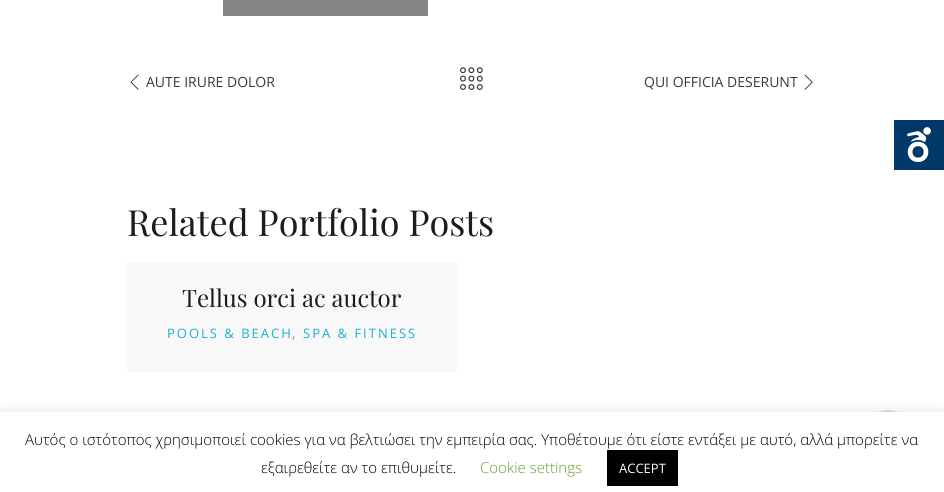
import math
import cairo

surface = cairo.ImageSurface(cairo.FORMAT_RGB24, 944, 492)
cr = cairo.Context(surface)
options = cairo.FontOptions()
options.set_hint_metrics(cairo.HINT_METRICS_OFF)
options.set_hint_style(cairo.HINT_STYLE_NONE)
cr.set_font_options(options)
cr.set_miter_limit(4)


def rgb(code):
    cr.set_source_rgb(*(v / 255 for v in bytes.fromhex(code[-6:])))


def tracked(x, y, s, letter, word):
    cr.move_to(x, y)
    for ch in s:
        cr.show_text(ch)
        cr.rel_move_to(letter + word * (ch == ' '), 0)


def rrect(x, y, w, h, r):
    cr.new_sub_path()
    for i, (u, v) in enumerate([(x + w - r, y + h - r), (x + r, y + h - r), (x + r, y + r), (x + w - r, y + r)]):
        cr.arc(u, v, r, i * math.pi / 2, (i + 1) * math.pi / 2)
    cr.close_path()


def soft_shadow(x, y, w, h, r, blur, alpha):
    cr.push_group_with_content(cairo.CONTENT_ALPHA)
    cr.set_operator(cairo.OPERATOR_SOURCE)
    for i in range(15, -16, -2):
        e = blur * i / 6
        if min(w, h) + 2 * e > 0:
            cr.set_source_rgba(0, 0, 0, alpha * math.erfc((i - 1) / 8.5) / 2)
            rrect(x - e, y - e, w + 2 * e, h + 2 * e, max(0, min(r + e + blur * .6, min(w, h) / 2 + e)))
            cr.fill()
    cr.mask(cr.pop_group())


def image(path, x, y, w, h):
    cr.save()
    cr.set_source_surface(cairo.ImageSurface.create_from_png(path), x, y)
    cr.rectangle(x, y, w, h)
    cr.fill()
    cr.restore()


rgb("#ffffff")
cr.paint()
rgb("#858585")
cr.rectangle(223, 0, 205, 16)
cr.fill()
image("img/1.png", 130, 74, 9, 16)
image("img/2.png", 460, 67, 23, 23)
image("img/3.png", 804, 74, 9, 16)
rgb("#f8f8f8")
cr.rectangle(127, 262, 330, 110)
cr.fill()
gradient = cairo.LinearGradient(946, 261, 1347, 29)
gradient.add_color_stop_rgba(0, 0, 0.227, 0.42, 1)
gradient.add_color_stop_rgba(1, 0, 0.149, 0.275, 1)
cr.set_source(gradient)
cr.rectangle(894, 120, 50, 50)
cr.fill()
image("img/4.png", 907, 127, 24, 35)
rgb("#dadada")
cr.arc(888, 436, 26, 0, 2 * math.pi)
cr.fill()
rgb("#acabab")
soft_shadow(0, 411, 944, 80, 0, 5, 0.3)
rgb("#ffffff")
cr.rectangle(0, 412, 944, 80)
cr.fill()
rgb("#000000")
cr.rectangle(607, 450, 71, 36)
cr.fill()
cr.select_font_face("Open Sans")
cr.set_font_size(14)
rgb("#343a40")
cr.move_to(146, 87)
cr.show_text("AUTE IRURE DOLOR")
cr.move_to(644, 87)
cr.show_text("QUI OFFICIA DESERUNT")
cr.select_font_face("Playfair Display")
cr.set_font_size(36)
rgb("#1c1c1c")
cr.move_to(127, 236)
cr.show_text("Related Portfolio Posts")
cr.set_font_size(24)
cr.move_to(182, 307)
cr.show_text("Tellus orci ac auctor")
cr.select_font_face("Open Sans")
cr.set_font_size(13)
rgb("#19b1d1")
tracked(167, 338, "POOLS & BEACH", 2, 0)
rgb("#858585")
tracked(292, 338, ",", 2, 0)
rgb("#19b1d1")
tracked(303, 338, "SPA & FITNESS", 2, 0)
cr.select_font_face("Open Sans Light")
cr.set_font_size(15)
rgb("#000000")
cr.move_to(25, 445)
cr.show_text("Αυτός ο ιστότοπος χρησιμοποιεί cookies για να βελτιώσει την εμπειρία σας. Υποθέτουμε ότι είστε εντάξει με αυτό, αλλά μπορείτε να")
cr.move_to(261, 473)
cr.show_text("εξαιρεθείτε αν το επιθυμείτε.")
rgb("#62a329")
cr.move_to(480, 473)
cr.show_text("Cookie settings")
cr.select_font_face("Open Sans")
cr.set_font_size(13)
rgb("#ffffff")
cr.move_to(619, 473)
cr.show_text("ACCEPT")
surface.write_to_png("page.png")
